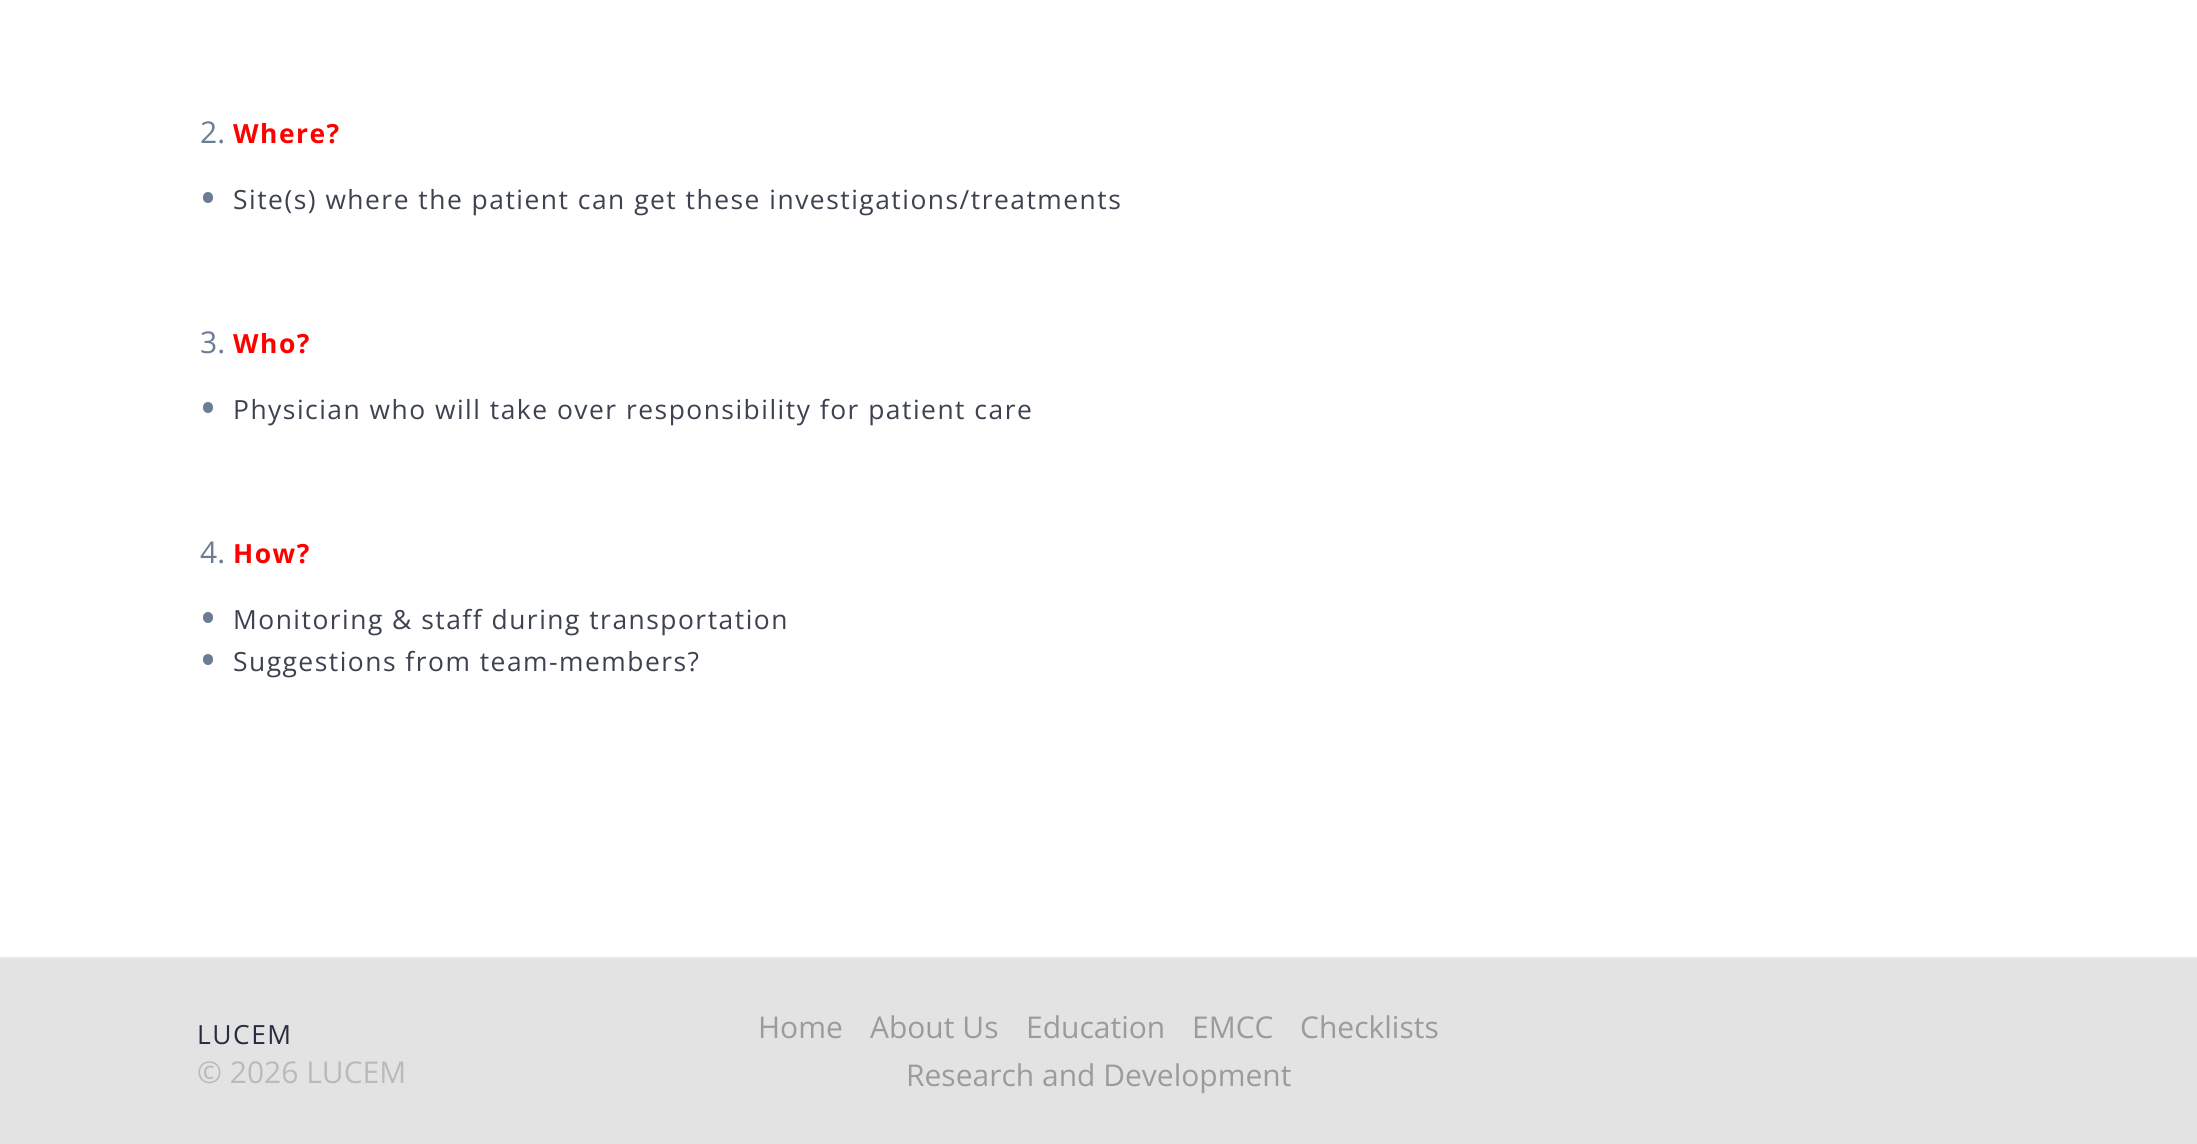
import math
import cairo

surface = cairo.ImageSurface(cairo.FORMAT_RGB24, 2197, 1144)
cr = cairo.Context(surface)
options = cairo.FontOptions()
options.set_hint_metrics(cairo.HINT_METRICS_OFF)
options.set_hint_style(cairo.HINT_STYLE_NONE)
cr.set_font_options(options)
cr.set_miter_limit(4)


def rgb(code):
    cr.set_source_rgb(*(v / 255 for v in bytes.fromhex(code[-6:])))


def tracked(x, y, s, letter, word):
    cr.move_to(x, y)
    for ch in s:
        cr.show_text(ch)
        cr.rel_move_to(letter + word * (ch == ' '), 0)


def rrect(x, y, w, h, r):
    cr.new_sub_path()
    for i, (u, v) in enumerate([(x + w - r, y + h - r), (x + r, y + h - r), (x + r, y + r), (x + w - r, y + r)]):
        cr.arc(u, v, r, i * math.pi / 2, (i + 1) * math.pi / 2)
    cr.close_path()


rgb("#ffffff")
cr.paint()
rgb("#6b7c93")
rrect(203, 192, 10, 11, 5)
cr.fill()
rrect(203, 402, 10, 11, 5)
cr.fill()
rrect(203, 612, 10, 11, 5)
cr.fill()
rrect(203, 654, 10, 11, 5)
cr.fill()
rgb("#e3e3e3")
cr.rectangle(0, 959, 2197, 185)
cr.fill()
rgb("#e8e8e8")
cr.rectangle(0, 957, 2197, 2)
cr.fill()
cr.select_font_face("Open Sans")
cr.set_font_size(30)
rgb("#6b7c93")
cr.move_to(200, 143)
cr.show_text("2.")
cr.select_font_face("Open Sans", cairo.FONT_SLANT_NORMAL, cairo.FONT_WEIGHT_BOLD)
cr.set_font_size(26.4)
rgb("#ff0000")
tracked(233, 143, "Where?", 1.5, 0)
cr.select_font_face("Open Sans")
rgb("#3c424f")
tracked(233, 209, "Site(s) where the patient can get these investigations/treatments", 1.5, 0)
cr.set_font_size(30)
rgb("#6b7c93")
cr.move_to(200, 353)
cr.show_text("3.")
cr.select_font_face("Open Sans", cairo.FONT_SLANT_NORMAL, cairo.FONT_WEIGHT_BOLD)
cr.set_font_size(26.4)
rgb("#ff0000")
tracked(233, 353, "Who?", 1.5, 0)
cr.select_font_face("Open Sans")
rgb("#3c424f")
tracked(233, 419, "Physician who will take over responsibility for patient care", 1.5, 0)
cr.set_font_size(30)
rgb("#6b7c93")
cr.move_to(200, 563)
cr.show_text("4.")
cr.select_font_face("Open Sans", cairo.FONT_SLANT_NORMAL, cairo.FONT_WEIGHT_BOLD)
cr.set_font_size(26.4)
rgb("#ff0000")
tracked(233, 563, "How?", 1.5, 0)
cr.select_font_face("Open Sans")
rgb("#3c424f")
tracked(233, 629, "Monitoring & staff during transportation", 1.5, 0)
tracked(233, 671, "Suggestions from team-members?", 1.5, 0)
rgb("#262d3f")
tracked(197, 1044, "LUCEM", 1.5, 0)
cr.set_font_size(30)
rgb("#bababa")
cr.move_to(197, 1083)
cr.show_text("© 2026 LUCEM")
rgb("#9b9b9b")
for x, y, s in [
    (758, 1038, "Home"),
    (870, 1038, "About Us"),
    (1026, 1038, "Education"),
    (1192, 1038, "EMCC"),
    (1300, 1038, "Checklists"),
    (906, 1086, "Research and Development"),
]:
    cr.move_to(x, y)
    cr.show_text(s)
surface.write_to_png("page.png")
